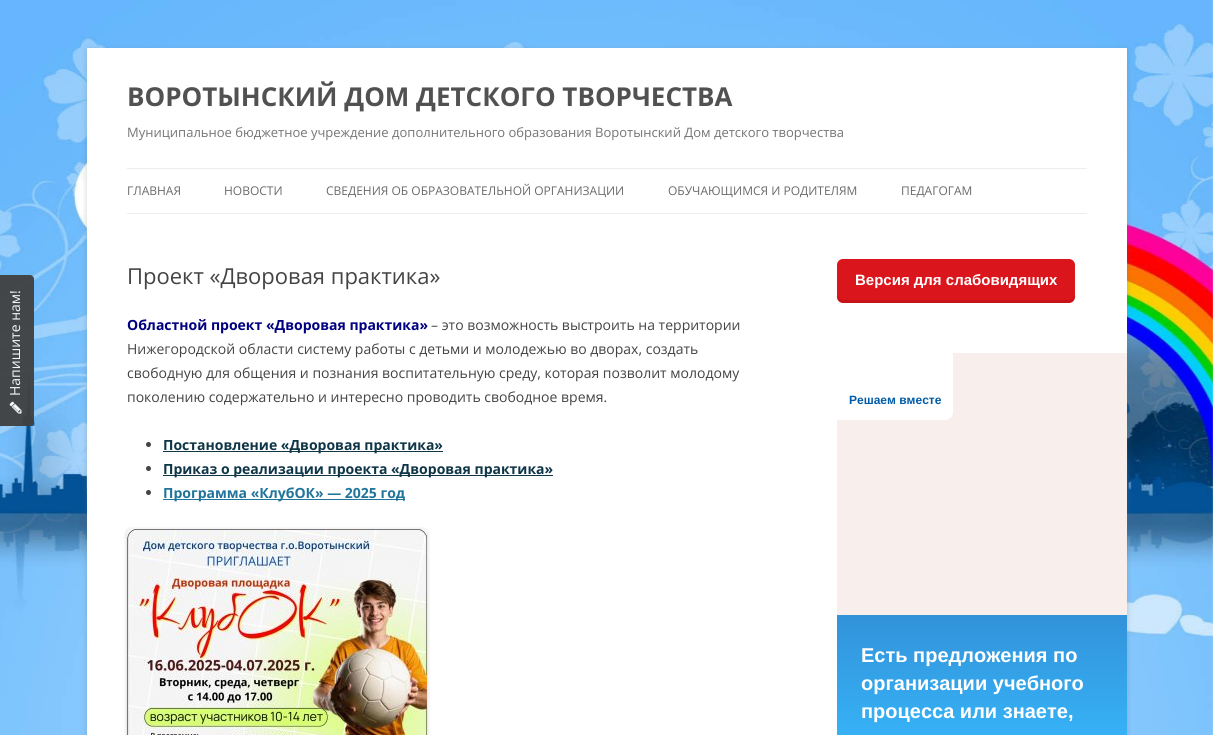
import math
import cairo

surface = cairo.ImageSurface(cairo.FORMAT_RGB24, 1213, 735)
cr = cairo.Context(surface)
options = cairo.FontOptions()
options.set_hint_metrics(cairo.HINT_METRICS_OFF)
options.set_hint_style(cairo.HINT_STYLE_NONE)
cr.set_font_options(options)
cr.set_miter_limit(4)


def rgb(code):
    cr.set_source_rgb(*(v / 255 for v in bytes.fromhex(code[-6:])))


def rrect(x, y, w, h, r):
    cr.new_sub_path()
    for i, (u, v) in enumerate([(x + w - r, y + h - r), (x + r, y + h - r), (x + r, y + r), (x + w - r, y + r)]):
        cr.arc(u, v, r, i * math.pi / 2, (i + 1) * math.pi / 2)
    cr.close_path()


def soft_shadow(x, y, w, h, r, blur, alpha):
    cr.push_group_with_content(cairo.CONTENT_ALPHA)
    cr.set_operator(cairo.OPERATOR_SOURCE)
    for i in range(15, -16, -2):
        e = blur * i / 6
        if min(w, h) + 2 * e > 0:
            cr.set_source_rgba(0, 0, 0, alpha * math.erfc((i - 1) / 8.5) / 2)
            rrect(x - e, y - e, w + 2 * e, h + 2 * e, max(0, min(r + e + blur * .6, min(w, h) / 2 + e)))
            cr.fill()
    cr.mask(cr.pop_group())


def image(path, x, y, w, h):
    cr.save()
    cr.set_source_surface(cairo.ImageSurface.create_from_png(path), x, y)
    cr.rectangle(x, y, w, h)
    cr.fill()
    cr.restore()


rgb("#ffffff")
cr.paint()
image("img/1.png", 0, 0, 1213, 735)
cr.set_source_rgba(0.251, 0.251, 0.251, 0.95)
cr.new_path()
cr.move_to(-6, 422)
cr.line_to(-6, 279)
cr.curve_to(-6, 277, -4, 275, -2, 275)
cr.line_to(30, 275)
cr.curve_to(32, 275, 34, 277, 34, 279)
cr.line_to(34, 422)
cr.curve_to(34, 424, 32, 426, 30, 426)
cr.line_to(-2, 426)
cr.curve_to(-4, 426, -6, 424, -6, 422)
cr.close_path()
cr.fill()
image("img/2.png", 9, 401, 13, 13)
rgb("#646464")
soft_shadow(87, 50, 1040, 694, 0, 3, 0.3)
for x, y, w, h, color in [
    (87, 48, 1040, 687, "#ffffff"),
    (127, 168, 960, 1, "#ededed"),
    (127, 213, 960, 1, "#ededed"),
]:
    rgb(color)
    cr.rectangle(x, y, w, h)
    cr.fill()
rgb("#444444")
cr.arc(148.5, 444.5, 2.5, 0, 2 * math.pi)
cr.fill()
rgb("#0f3647")
cr.rectangle(163, 451, 280, 1)
cr.fill()
rgb("#444444")
cr.arc(148.5, 468.5, 2.5, 0, 2 * math.pi)
cr.fill()
rgb("#0f3647")
cr.rectangle(163, 475, 390, 1)
cr.fill()
rgb("#444444")
cr.arc(148.5, 492.5, 2.5, 0, 2 * math.pi)
cr.fill()
rgb("#21759b")
cr.rectangle(163, 499, 242, 1)
cr.fill()
rgb("#000000")
soft_shadow(127, 530, 300, 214, 3, 2, 0.2)
image("img/3.png", 127, 529, 300, 206)
rgb("#db151c")
rrect(837, 259, 238, 44, 6)
cr.fill()
cr.set_source_rgba(0, 0, 0, 0.1)
cr.new_path()
cr.move_to(837, 294)
cr.line_to(837, 297)
cr.curve_to(837, 300, 840, 303, 843, 303)
cr.line_to(1069, 303)
cr.curve_to(1072, 303, 1075, 300, 1075, 297)
cr.line_to(1075, 294)
cr.curve_to(1075, 297, 1072, 300, 1069, 300)
cr.line_to(843, 300)
cr.curve_to(840, 300, 837, 297, 837, 294)
cr.close_path()
cr.fill()
gradient = cairo.LinearGradient(984, 353, 984, 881)
gradient.add_color_stop_rgba(0.26, 0.176, 0.451, 0.737, 1)
gradient.add_color_stop_rgba(0.79, 0.22, 0.729, 0.996, 1)
cr.set_source(gradient)
cr.rectangle(837, 615, 290, 120)
cr.fill()
rgb("#f8efec")
cr.rectangle(837, 353, 290, 262)
cr.fill()
rgb("#ffffff")
cr.new_path()
cr.move_to(837, 353)
cr.line_to(953, 353)
cr.line_to(953, 412)
cr.curve_to(953, 416.5, 949.5, 420, 945, 420)
cr.line_to(837, 420)
cr.close_path()
cr.fill()
cr.select_font_face("Open Sans")
cr.set_font_size(14)
rgb("#f6f6f6")
cr.save()
cr.translate(20, 396)
cr.rotate(-90 * math.pi / 180)
cr.move_to(0, 0)
cr.show_text("Напишите нам!")
cr.restore()
cr.select_font_face("Open Sans", cairo.FONT_SLANT_NORMAL, cairo.FONT_WEIGHT_BOLD)
cr.set_font_size(26)
rgb("#515151")
cr.move_to(127, 106)
cr.show_text("ВОРОТЫНСКИЙ ДОМ ДЕТСКОГО ТВОРЧЕСТВА")
cr.select_font_face("Open Sans")
cr.set_font_size(13)
rgb("#757575")
cr.move_to(127, 137)
cr.show_text("Муниципальное бюджетное учреждение дополнительного образования Воротынский Дом детского творчества")
cr.set_font_size(12)
rgb("#6a6a6a")
for x, y, s in [
    (127, 195, "ГЛАВНАЯ"),
    (224, 195, "НОВОСТИ"),
    (326, 195, "СВЕДЕНИЯ ОБ ОБРАЗОВАТЕЛЬНОЙ ОРГАНИЗАЦИИ"),
    (668, 195, "ОБУЧАЮЩИМСЯ И РОДИТЕЛЯМ"),
    (901, 195, "ПЕДАГОГАМ"),
]:
    cr.move_to(x, y)
    cr.show_text(s)
cr.set_font_size(22)
rgb("#444444")
cr.move_to(127, 284)
cr.show_text("Проект «Дворовая практика»")
cr.select_font_face("Open Sans", cairo.FONT_SLANT_NORMAL, cairo.FONT_WEIGHT_BOLD)
cr.set_font_size(14)
rgb("#000080")
cr.move_to(127, 330)
cr.show_text("Областной проект «Дворовая практика»")
cr.select_font_face("Open Sans")
rgb("#444444")
for x, y, s in [
    (431, 330, "– это возможность выстроить на территории"),
    (127, 354, "Нижегородской области систему работы с детьми и молодежью во дворах, создать"),
    (127, 378, "свободную для общения и познания воспитательную среду, которая позволит молодому"),
    (127, 402, "поколению содержательно и интересно проводить свободное время."),
]:
    cr.move_to(x, y)
    cr.show_text(s)
cr.select_font_face("Open Sans", cairo.FONT_SLANT_NORMAL, cairo.FONT_WEIGHT_BOLD)
rgb("#0f3647")
cr.move_to(163, 450)
cr.show_text("Постановление «Дворовая практика»")
cr.move_to(163, 474)
cr.show_text("Приказ о реализации проекта «Дворовая практика»")
rgb("#21759b")
cr.move_to(163, 498)
cr.show_text("Программа «КлубОК» — 2025 год")
cr.select_font_face("Liberation Sans", cairo.FONT_SLANT_NORMAL, cairo.FONT_WEIGHT_BOLD)
cr.set_font_size(15)
rgb("#ffffff")
cr.move_to(855, 285)
cr.show_text("Версия для слабовидящих")
cr.set_font_size(12)
rgb("#005ca9")
cr.move_to(849, 404)
cr.show_text("Решаем вместе")
cr.set_font_size(20)
rgb("#ffffff")
for x, y, s in [
    (861, 662, "Есть предложения по"),
    (861, 690, "организации учебного"),
    (861, 718, "процесса или знаете,"),
]:
    cr.move_to(x, y)
    cr.show_text(s)
surface.write_to_png("page.png")
